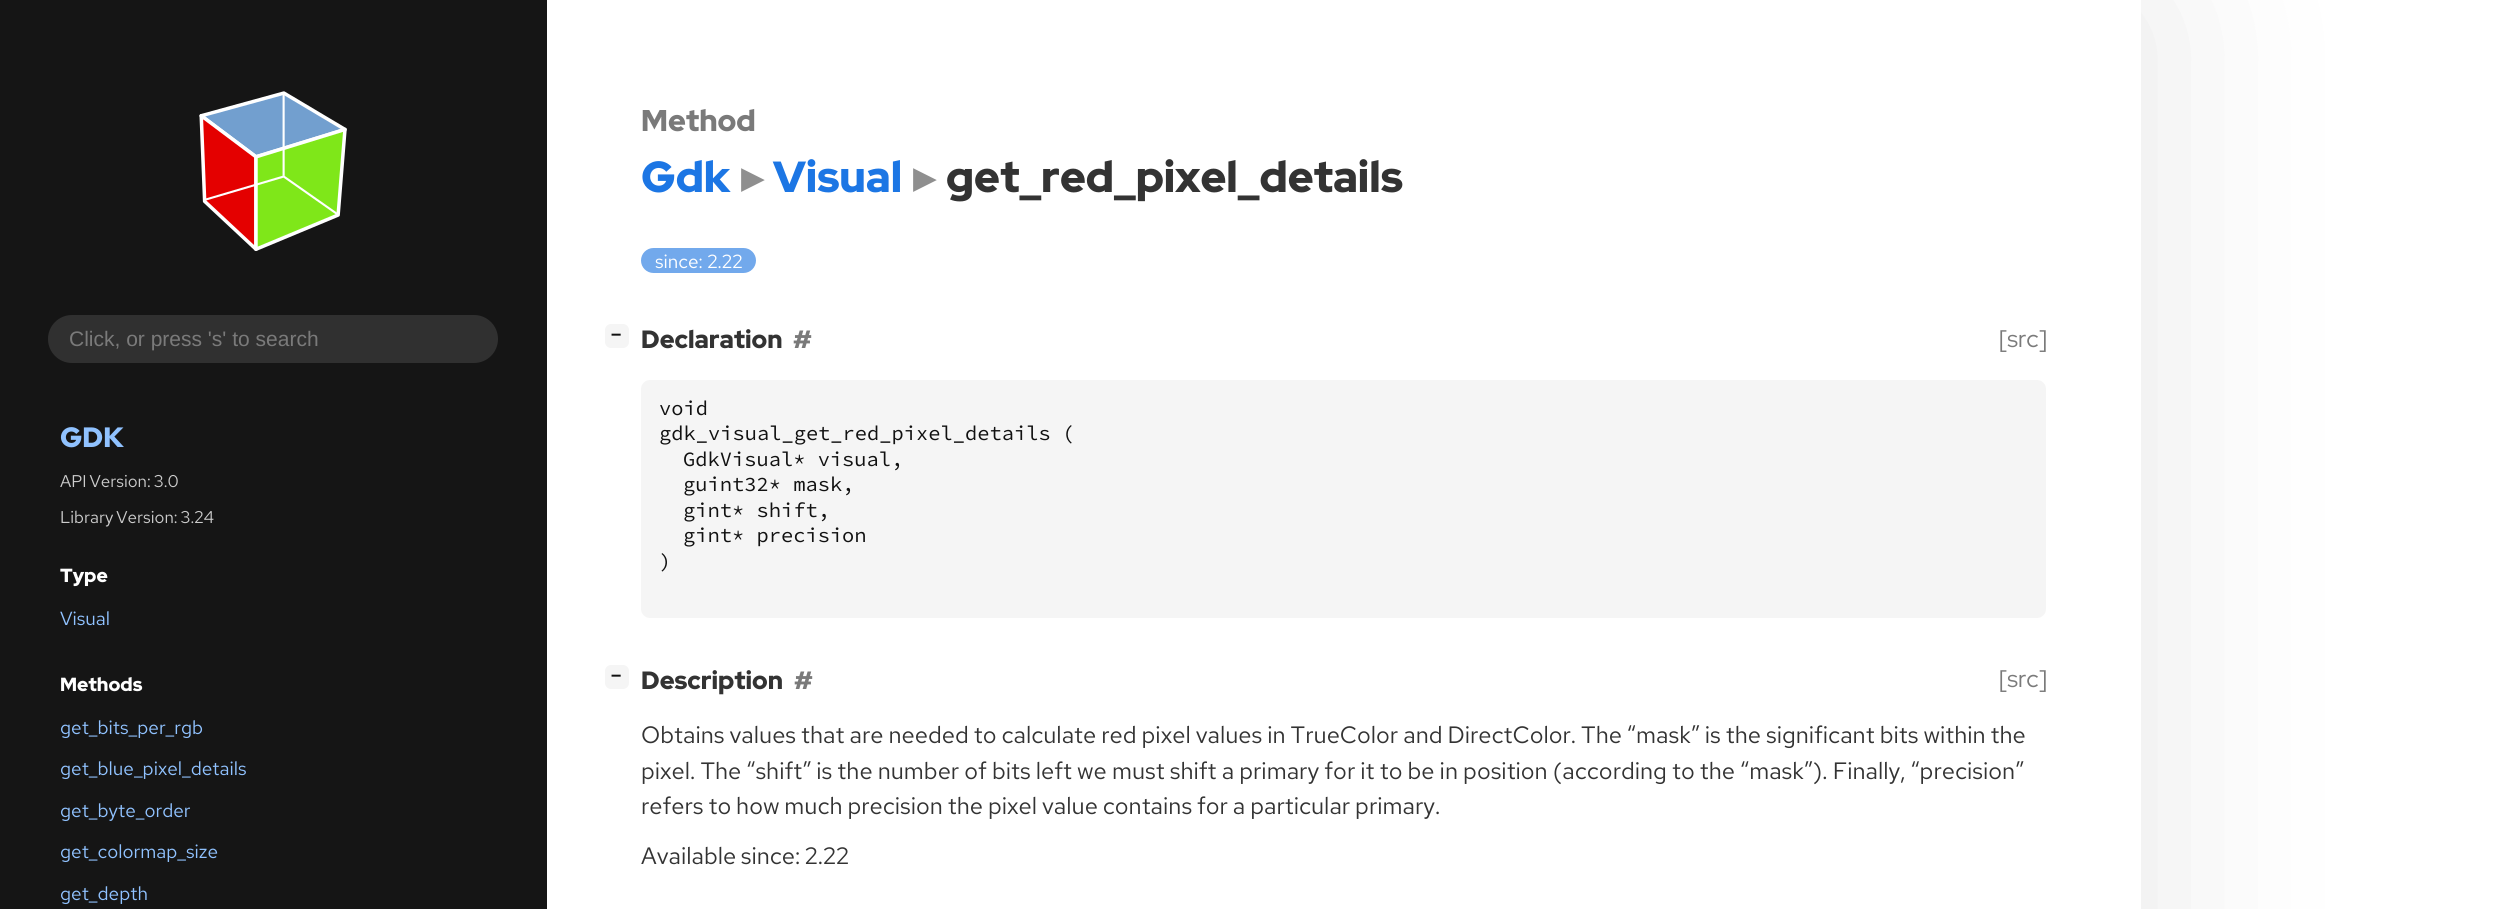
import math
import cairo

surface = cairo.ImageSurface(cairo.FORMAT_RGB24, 2493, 909)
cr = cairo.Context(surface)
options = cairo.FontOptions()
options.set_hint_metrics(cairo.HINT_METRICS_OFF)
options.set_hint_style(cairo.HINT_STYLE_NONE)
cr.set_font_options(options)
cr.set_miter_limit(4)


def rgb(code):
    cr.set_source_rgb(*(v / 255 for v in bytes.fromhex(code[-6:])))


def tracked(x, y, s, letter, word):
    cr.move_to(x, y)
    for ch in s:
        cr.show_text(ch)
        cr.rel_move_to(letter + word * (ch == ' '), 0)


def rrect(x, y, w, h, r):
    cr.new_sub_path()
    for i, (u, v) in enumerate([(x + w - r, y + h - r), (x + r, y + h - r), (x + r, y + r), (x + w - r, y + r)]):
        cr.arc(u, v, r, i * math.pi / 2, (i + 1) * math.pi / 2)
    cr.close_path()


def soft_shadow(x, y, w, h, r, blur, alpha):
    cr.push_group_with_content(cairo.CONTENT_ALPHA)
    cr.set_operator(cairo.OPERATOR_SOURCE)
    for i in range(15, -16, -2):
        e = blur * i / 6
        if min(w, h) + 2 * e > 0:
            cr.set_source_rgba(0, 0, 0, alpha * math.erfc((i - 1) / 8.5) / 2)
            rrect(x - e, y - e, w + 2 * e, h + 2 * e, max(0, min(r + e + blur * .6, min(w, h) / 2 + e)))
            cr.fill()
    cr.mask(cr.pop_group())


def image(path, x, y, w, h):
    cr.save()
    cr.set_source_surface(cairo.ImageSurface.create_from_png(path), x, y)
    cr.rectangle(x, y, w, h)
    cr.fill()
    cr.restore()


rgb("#ffffff")
cr.paint()
cr.save()
cr.set_fill_rule(cairo.FILL_RULE_EVEN_ODD)
cr.new_path()
cr.move_to(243, 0)
cr.line_to(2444, 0)
cr.line_to(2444, 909)
cr.line_to(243, 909)
cr.close_path()
cr.move_to(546, 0)
cr.line_to(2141, 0)
cr.line_to(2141, 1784)
cr.line_to(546, 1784)
cr.close_path()
cr.clip()
rgb("#000000")
soft_shadow(546, 0, 1595, 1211, 0, 100.5, 0.1)
cr.restore()
rgb("#151515")
cr.rectangle(0, 0, 547, 909)
cr.fill()
image("img/1.png", 199, 91, 148, 160)
rgb("#303030")
rrect(48, 315, 450, 48, 24)
cr.fill()
rgb("#72a9ec")
rrect(641, 248, 115, 25, 12.5)
cr.fill()
rgb("#f5f5f5")
rrect(605, 324, 24, 24, 6)
cr.fill()
rrect(641, 380, 1405, 238, 9)
cr.fill()
rrect(605, 665, 24, 24, 6)
cr.fill()
cr.select_font_face("Liberation Sans")
cr.set_font_size(21)
rgb("#7a7a7a")
cr.move_to(69, 346)
cr.show_text("Click, or press 's' to search")
cr.select_font_face("Red Hat Display Black")
cr.set_font_size(28)
rgb("#90c2ff")
cr.move_to(60, 447)
cr.show_text("GDK")
cr.select_font_face("Red Hat Text")
cr.set_font_size(17)
rgb("#cccccc")
tracked(60, 487, "API Version: 3.0", 0, -1)
tracked(60, 523, "Library Version: 3.24", 0, -1)
cr.select_font_face("Red Hat Display Black")
cr.set_font_size(19)
rgb("#ffffff")
cr.move_to(60, 582)
cr.show_text("Type")
cr.select_font_face("Red Hat Text")
rgb("#90c2ff")
cr.move_to(60, 625)
cr.show_text("Visual")
cr.select_font_face("Red Hat Display Black")
rgb("#ffffff")
cr.move_to(60, 691)
cr.show_text("Methods")
cr.select_font_face("Red Hat Text")
rgb("#90c2ff")
for x, y, s in [
    (60, 734, "get_bits_per_rgb"),
    (60, 775, "get_blue_pixel_details"),
    (60, 817, "get_byte_order"),
    (60, 858, "get_colormap_size"),
    (60, 900, "get_depth"),
]:
    cr.move_to(x, y)
    cr.show_text(s)
cr.select_font_face("Red Hat Display Black")
cr.set_font_size(30)
rgb("#7a7a7a")
cr.move_to(641, 131)
cr.show_text("Method")
cr.set_font_size(43.5)
rgb("#1c76e4")
cr.move_to(641, 192)
cr.show_text("Gdk")
cr.select_font_face("DejaVu Sans", cairo.FONT_SLANT_NORMAL, cairo.FONT_WEIGHT_BOLD)
rgb("#8f8f8f")
cr.move_to(741, 192)
cr.show_text("▸")
cr.select_font_face("Red Hat Display Black")
rgb("#1c76e4")
cr.move_to(773, 192)
cr.show_text("Visual")
cr.select_font_face("DejaVu Sans", cairo.FONT_SLANT_NORMAL, cairo.FONT_WEIGHT_BOLD)
rgb("#8f8f8f")
cr.move_to(913, 192)
cr.show_text("▸")
cr.select_font_face("Red Hat Display Black")
rgb("#333333")
cr.move_to(946, 192)
cr.show_text("get_red_pixel_details")
cr.select_font_face("Red Hat Text")
cr.set_font_size(19)
rgb("#ffffff")
cr.move_to(655, 268)
cr.show_text("since: 2.22")
cr.select_font_face("DejaVu Sans Mono", cairo.FONT_SLANT_NORMAL, cairo.FONT_WEIGHT_BOLD)
cr.set_font_size(17)
rgb("#111111")
cr.move_to(611, 340)
cr.show_text("−")
cr.select_font_face("Red Hat Display Black")
cr.set_font_size(25)
rgb("#333333")
cr.move_to(641, 348)
cr.show_text("Declaration")
rgb("#7a7a7a")
cr.move_to(793, 348)
cr.show_text("#")
cr.select_font_face("Red Hat Display")
cr.set_font_size(24)
cr.move_to(1999, 347)
cr.show_text("[src]")
cr.select_font_face("Source Code Pro")
cr.set_font_size(20.4)
rgb("#111111")
for x, y, s in [
    (659, 415, "void"),
    (659, 440, "gdk_visual_get_red_pixel_details"),
    (1062, 440, "("),
    (683, 466, "GdkVisual* visual,"),
    (683, 491, "guint32* mask,"),
    (683, 517, "gint* shift,"),
    (683, 542, "gint* precision"),
    (659, 568, ")"),
]:
    cr.move_to(x, y)
    cr.show_text(s)
cr.select_font_face("DejaVu Sans Mono", cairo.FONT_SLANT_NORMAL, cairo.FONT_WEIGHT_BOLD)
cr.set_font_size(17)
cr.move_to(611, 681)
cr.show_text("−")
cr.select_font_face("Red Hat Display Black")
cr.set_font_size(25)
rgb("#333333")
cr.move_to(641, 689)
cr.show_text("Description")
rgb("#7a7a7a")
cr.move_to(794, 689)
cr.show_text("#")
cr.select_font_face("Red Hat Display")
cr.set_font_size(24)
cr.move_to(1999, 687)
cr.show_text("[src]")
cr.select_font_face("Red Hat Text")
cr.set_font_size(23.68)
rgb("#333333")
tracked(641, 743, "Obtains values that are needed to calculate red pixel values in TrueColor and DirectColor. The “mask” is the significant bits within the", 0, -0.5)
tracked(641, 779, "pixel. The “shift” is the number of bits left we must shift a primary for it to be in position (according to the “mask”). Finally, “precision”", 0, -0.4)
tracked(641, 814, "refers to how much precision the pixel value contains for a particular primary.", 0, -0.6)
tracked(641, 864, "Available since: 2.22", 0, -1)
surface.write_to_png("page.png")
